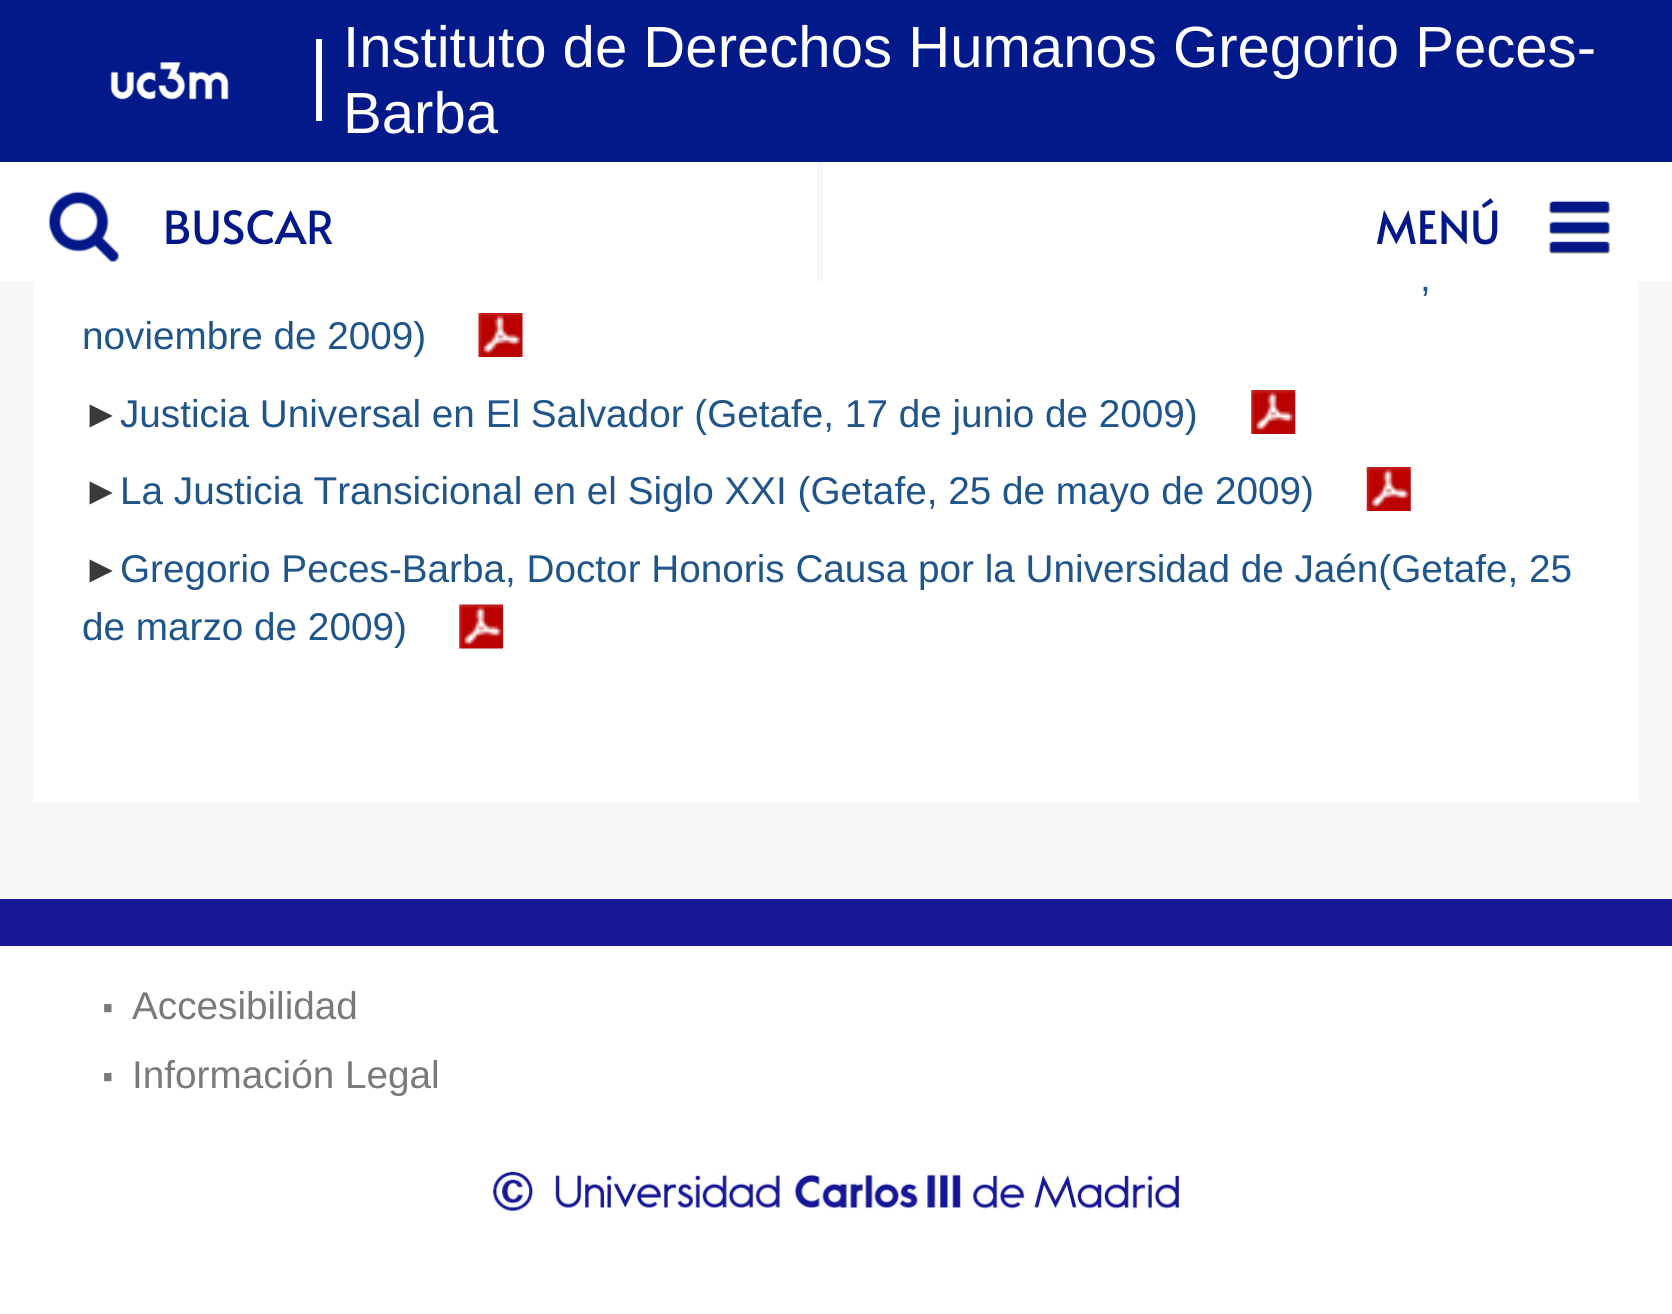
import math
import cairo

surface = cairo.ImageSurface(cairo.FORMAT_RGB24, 1672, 1314)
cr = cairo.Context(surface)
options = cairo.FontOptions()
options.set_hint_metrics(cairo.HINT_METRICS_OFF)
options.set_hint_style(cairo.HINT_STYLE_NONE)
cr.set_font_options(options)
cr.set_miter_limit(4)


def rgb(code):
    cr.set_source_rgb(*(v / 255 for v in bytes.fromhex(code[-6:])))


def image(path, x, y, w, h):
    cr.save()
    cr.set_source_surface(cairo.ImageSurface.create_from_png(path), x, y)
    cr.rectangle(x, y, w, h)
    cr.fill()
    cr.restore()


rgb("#f7f7f7")
cr.paint()
rgb("#021989")
cr.rectangle(0, 0, 1672, 162)
cr.fill()
rgb("#ffffff")
cr.rectangle(316, 39, 6, 82)
cr.fill()
image("img/1.png", 110, 62, 119, 38)
cr.rectangle(0, 162, 1672, 119)
cr.fill()
rgb("#f7f7f7")
cr.rectangle(817, 162, 6, 119)
cr.fill()
image("img/2.png", 48, 191, 71, 71)
image("img/3.png", 1548, 200, 62, 54)
rgb("#ffffff")
cr.rectangle(33, 281, 1606, 522)
cr.fill()
image("img/4.png", 478, 313, 45, 44)
image("img/5.png", 1251, 390, 45, 44)
image("img/6.png", 1366, 467, 45, 44)
image("img/7.png", 459, 604, 44, 45)
cr.rectangle(0, 946, 1672, 368)
cr.fill()
rgb("#171796")
cr.rectangle(0, 899, 1672, 47)
cr.fill()
image("img/8.png", 492, 1168, 687, 47)
cr.select_font_face("Liberation Sans")
cr.set_font_size(58.1)
rgb("#ffffff")
cr.move_to(343, 67)
cr.show_text("Instituto de Derechos Humanos Gregorio Peces-")
cr.move_to(343, 133)
cr.show_text("Barba")
cr.select_font_face("Alata")
cr.set_font_size(45.5)
rgb("#021889")
cr.move_to(163, 244)
cr.show_text("BUSCAR")
cr.move_to(1376, 244)
cr.show_text("MENÚ")
cr.select_font_face("Liberation Sans")
cr.set_font_size(38.7)
rgb("#20558a")
cr.move_to(1420, 291)
cr.show_text(",")
cr.move_to(82, 349)
cr.show_text("noviembre de 2009)")
rgb("#3a3a3a")
cr.move_to(82, 427)
cr.show_text("►")
rgb("#20558a")
cr.move_to(120, 427)
cr.show_text("Justicia Universal en El Salvador (Getafe, 17 de junio de 2009)")
rgb("#3a3a3a")
cr.move_to(82, 504)
cr.show_text("►")
rgb("#20558a")
cr.move_to(120, 504)
cr.show_text("La Justicia Transicional en el Siglo XXI (Getafe, 25 de mayo de 2009)")
rgb("#3a3a3a")
cr.move_to(82, 582)
cr.show_text("►")
rgb("#20558a")
cr.move_to(120, 582)
cr.show_text("Gregorio Peces-Barba, Doctor Honoris Causa por la Universidad de Jaén(Getafe, 25")
cr.move_to(82, 640)
cr.show_text("de marzo de 2009)")
cr.set_font_size(77)
rgb("#7a7a7a")
cr.move_to(95, 1029)
cr.show_text("·")
cr.set_font_size(38.7)
cr.move_to(132, 1019)
cr.show_text("Accesibilidad")
cr.set_font_size(77)
cr.move_to(95, 1098)
cr.show_text("·")
cr.set_font_size(38.7)
cr.move_to(132, 1088)
cr.show_text("Información Legal")
surface.write_to_png("page.png")
